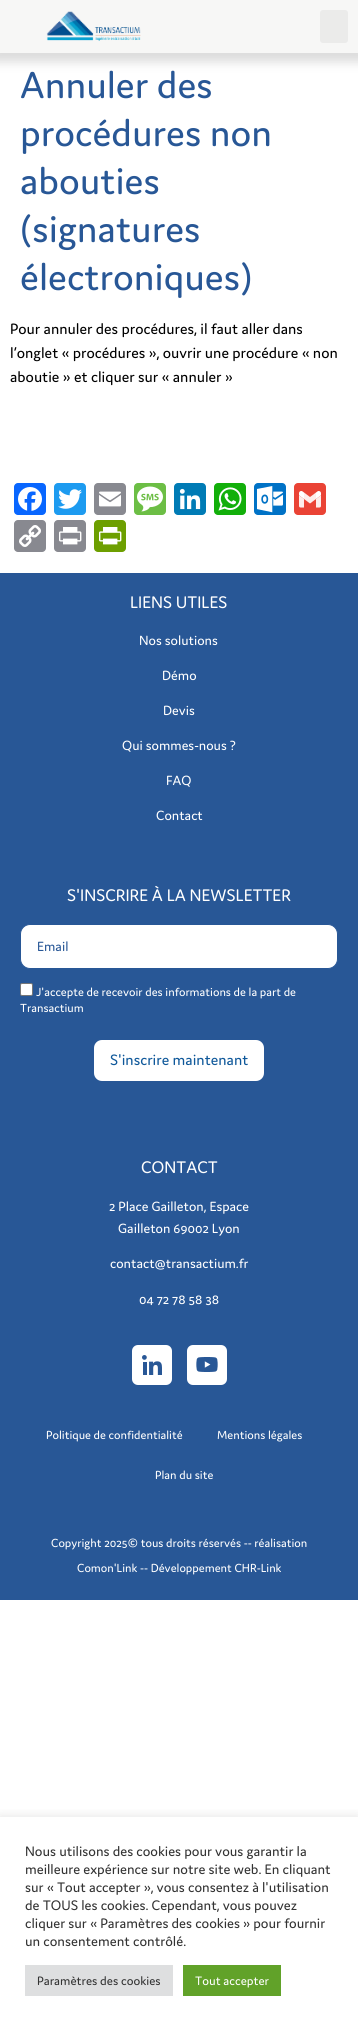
import math
import cairo

surface = cairo.ImageSurface(cairo.FORMAT_RGB24, 358, 2026)
cr = cairo.Context(surface)
options = cairo.FontOptions()
options.set_hint_metrics(cairo.HINT_METRICS_OFF)
options.set_hint_style(cairo.HINT_STYLE_NONE)
cr.set_font_options(options)
cr.set_miter_limit(4)


def rgb(code):
    cr.set_source_rgb(*(v / 255 for v in bytes.fromhex(code[-6:])))


def rrect(x, y, w, h, r):
    cr.new_sub_path()
    for i, (u, v) in enumerate([(x + w - r, y + h - r), (x + r, y + h - r), (x + r, y + r), (x + w - r, y + r)]):
        cr.arc(u, v, r, i * math.pi / 2, (i + 1) * math.pi / 2)
    cr.close_path()


def soft_shadow(x, y, w, h, r, blur, alpha):
    cr.push_group_with_content(cairo.CONTENT_ALPHA)
    cr.set_operator(cairo.OPERATOR_SOURCE)
    for i in range(15, -16, -2):
        e = blur * i / 6
        if min(w, h) + 2 * e > 0:
            cr.set_source_rgba(0, 0, 0, alpha * math.erfc((i - 1) / 8.5) / 2)
            rrect(x - e, y - e, w + 2 * e, h + 2 * e, max(0, min(r + e + blur * .6, min(w, h) / 2 + e)))
            cr.fill()
    cr.mask(cr.pop_group())


def image(path, x, y, w, h):
    cr.save()
    cr.set_source_surface(cairo.ImageSurface.create_from_png(path), x, y)
    cr.rectangle(x, y, w, h)
    cr.fill()
    cr.restore()


rgb("#ffffff")
cr.paint()
rgb("#dcdcdc")
soft_shadow(-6, -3, 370, 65, 0, 5, 1)
rgb("#f7f7f6")
cr.rectangle(0, 0, 358, 53)
cr.fill()
image("img/1.png", 46, 11, 95, 30)
rgb("#ebebea")
rrect(320, 10, 28, 33, 3)
cr.fill()
rgb("#0866ff")
rrect(14, 483, 32, 32, 4)
cr.fill()
image("img/2.png", 18, 487, 24, 24)
rgb("#1d9bf0")
rrect(54, 483, 32, 32, 4)
cr.fill()
image("img/3.png", 58, 489, 24, 20)
rgb("#888990")
rrect(94, 483, 32, 32, 4)
cr.fill()
image("img/4.png", 99, 491, 22, 16)
rgb("#6cbe45")
rrect(134, 483, 32, 32, 4)
cr.fill()
image("img/5.png", 137, 486, 26, 26)
rgb("#007bb5")
rrect(174, 483, 32, 32, 4)
cr.fill()
image("img/6.png", 179, 488, 22, 22)
rgb("#12af0a")
rrect(214, 483, 32, 32, 4)
cr.fill()
image("img/7.png", 218, 487, 24, 24)
rgb("#0072c6")
rrect(254, 483, 32, 32, 4)
cr.fill()
image("img/8.png", 257, 486, 26, 27)
rgb("#ea4335")
rrect(294, 483, 32, 32, 4)
cr.fill()
image("img/9.png", 299, 491, 22, 17)
rgb("#888990")
rrect(14, 520, 32, 32, 4)
cr.fill()
image("img/10.png", 19, 525, 22, 22)
rrect(54, 520, 32, 32, 4)
cr.fill()
image("img/11.png", 59, 527, 23, 18)
rgb("#6d9f00")
rrect(94, 520, 32, 32, 4)
cr.fill()
image("img/12.png", 99, 527, 23, 18)
rgb("#285796")
cr.rectangle(0, 573, 358, 1027)
cr.fill()
rgb("#ffffff")
rrect(20.5, 924.5, 317, 44, 9.5)
cr.fill_preserve()
rgb("#285796")
cr.set_line_width(1)
cr.stroke()
rgb("#ffffff")
rrect(20.5, 983.5, 12, 12, 1.5)
cr.fill_preserve()
rgb("#767676")
cr.stroke()
rgb("#ffffff")
rrect(93, 1039, 172, 43, 9)
cr.fill_preserve()
rgb("#285796")
cr.set_line_width(2)
cr.stroke()
rgb("#ffffff")
rrect(132, 1345, 40, 40, 6)
cr.fill()
image("img/13.png", 142, 1355, 20, 20)
rrect(187, 1345, 40, 40, 6)
cr.fill()
image("img/14.png", 196, 1357, 22, 15)
cr.save()
cr.rectangle(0, 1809, 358, 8)
cr.clip()
rgb("#acabab")
soft_shadow(0, 1816, 358, 209, 0, 5, 0.3)
cr.restore()
rgb("#dedfe0")
cr.rectangle(25, 1965, 148, 31)
cr.fill()
rgb("#61a229")
cr.rectangle(183, 1965, 98, 31)
cr.fill()
cr.select_font_face("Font")
cr.set_font_size(40)
rgb("#285796")
for x, y, s in [
    (20, 98, "Annuler des"),
    (20, 146, "procédures non"),
    (20, 194, "abouties"),
    (20, 242, "(signatures"),
    (20, 290, "électroniques)"),
]:
    cr.move_to(x, y)
    cr.show_text(s)
cr.set_font_size(16)
rgb("#000000")
for x, y, s in [
    (10, 334, "Pour annuler des procédures, il faut aller dans"),
    (10, 358, "l’onglet « procédures », ouvrir une procédure « non"),
    (10, 382, "aboutie » et cliquer sur « annuler »"),
]:
    cr.move_to(x, y)
    cr.show_text(s)
cr.set_font_size(17.9)
rgb("#ffffff")
cr.move_to(130, 608)
cr.show_text("LIENS UTILES")
cr.set_font_size(14.25)
for x, y, s in [
    (139, 645, "Nos solutions"),
    (162, 680, "Démo"),
    (163, 715, "Devis"),
    (122, 750, "Qui sommes-nous ?"),
    (166, 785, "FAQ"),
    (156, 820, "Contact"),
]:
    cr.move_to(x, y)
    cr.show_text(s)
cr.set_font_size(17.9)
cr.move_to(67, 901)
cr.show_text("S'INSCRIRE À LA NEWSLETTER")
cr.set_font_size(14.25)
rgb("#285796")
cr.move_to(37, 951)
cr.show_text("Email")
cr.set_font_size(12.5)
rgb("#ffffff")
cr.move_to(36, 996)
cr.show_text("J'accepte de recevoir des informations de la part de")
cr.move_to(20, 1012)
cr.show_text("Transactium")
cr.set_font_size(16)
rgb("#0f589a")
cr.move_to(110, 1065)
cr.show_text("S'inscrire maintenant")
cr.set_font_size(17.9)
rgb("#ffffff")
cr.move_to(141, 1173)
cr.show_text("CONTACT")
cr.set_font_size(14.25)
for x, y, s in [
    (109, 1211, "2 Place Gailleton, Espace"),
    (118, 1233, "Gailleton 69002 Lyon"),
    (110, 1268, "contact@transactium.fr"),
    (139, 1304, "04 72 78 58 38"),
]:
    cr.move_to(x, y)
    cr.show_text(s)
cr.set_font_size(12.5)
for x, y, s in [
    (46, 1439, "Politique de confidentialité"),
    (217, 1439, "Mentions légales"),
    (155, 1479, "Plan du site"),
    (51, 1547, "Copyright 2025© tous droits réservés -- réalisation"),
    (77, 1572, "Comon'Link -- Développement CHR-Link"),
]:
    cr.move_to(x, y)
    cr.show_text(s)
cr.set_font_size(14.7)
rgb("#333333")
for x, y, s in [
    (25, 1856, "Nous utilisons des cookies pour vous garantir la"),
    (25, 1874, "meilleure expérience sur notre site web. En cliquant"),
    (25, 1892, "sur « Tout accepter », vous consentez à l'utilisation"),
    (25, 1910, "de TOUS les cookies. Cependant, vous pouvez"),
    (25, 1928, "cliquer sur « Paramètres des cookies » pour fournir"),
    (25, 1946, "un consentement contrôlé."),
]:
    cr.move_to(x, y)
    cr.show_text(s)
cr.set_font_size(13)
cr.move_to(37, 1985)
cr.show_text("Paramètres des cookies")
rgb("#ffffff")
cr.move_to(195, 1985)
cr.show_text("Tout accepter")
surface.write_to_png("page.png")
